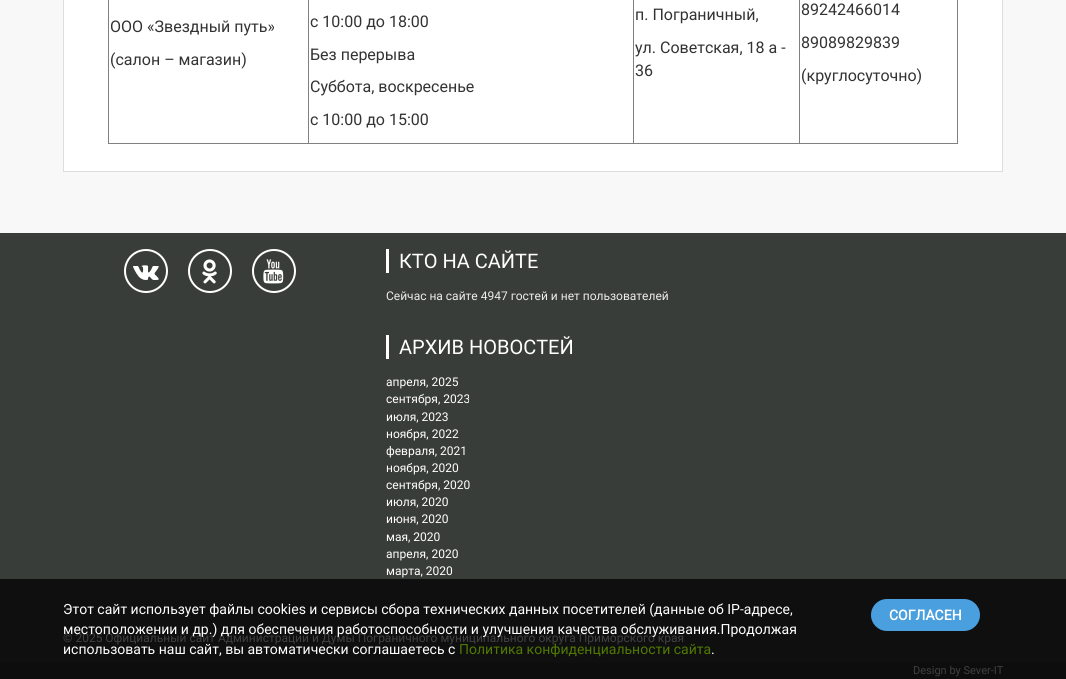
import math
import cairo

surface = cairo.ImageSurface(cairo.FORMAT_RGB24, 1066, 679)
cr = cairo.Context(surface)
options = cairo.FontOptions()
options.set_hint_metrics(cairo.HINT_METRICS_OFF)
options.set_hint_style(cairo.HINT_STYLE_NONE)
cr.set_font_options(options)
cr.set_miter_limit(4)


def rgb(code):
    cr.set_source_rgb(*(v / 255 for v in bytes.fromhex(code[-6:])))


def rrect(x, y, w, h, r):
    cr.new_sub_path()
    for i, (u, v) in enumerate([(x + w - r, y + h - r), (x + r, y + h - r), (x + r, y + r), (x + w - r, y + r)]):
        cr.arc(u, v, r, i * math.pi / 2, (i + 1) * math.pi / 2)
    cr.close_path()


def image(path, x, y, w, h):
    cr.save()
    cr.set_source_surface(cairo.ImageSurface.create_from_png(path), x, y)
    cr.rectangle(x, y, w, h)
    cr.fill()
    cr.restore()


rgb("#f8f8f8")
cr.paint()
rgb("#ffffff")
cr.rectangle(63.5, -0.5, 939, 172)
cr.fill_preserve()
rgb("#dddddd")
cr.set_line_width(1)
cr.stroke()
for x, y, w, h, color in [
    (957, 0, 1, 144, "#808080"),
    (108, 143, 850, 1, "#808080"),
    (108, 0, 1, 144, "#808080"),
    (308, 0, 1, 144, "#808080"),
    (633, 0, 1, 144, "#808080"),
    (799, 0, 1, 144, "#808080"),
    (0, 233, 1066, 346, "#393d39"),
    (0, 579, 1066, 84, "#0e0f0e"),
]:
    rgb(color)
    cr.rectangle(x, y, w, h)
    cr.fill()
cr.arc(146, 271, 21, 0, 2 * math.pi)
rgb("#ffffff")
cr.set_line_width(2)
cr.stroke()
image("img/1.png", 133, 265, 26, 15)
cr.arc(210, 271, 21, 0, 2 * math.pi)
cr.stroke()
image("img/2.png", 202, 259, 15, 25)
cr.arc(274, 271, 21, 0, 2 * math.pi)
cr.stroke()
image("img/3.png", 263, 259, 21, 25)
for x, y, w, h, color in [
    (386, 249, 3, 24, "#ffffff"),
    (386, 335, 3, 24, "#ffffff"),
    (0, 663, 1066, 16, "#0d0d0d"),
]:
    rgb(color)
    cr.rectangle(x, y, w, h)
    cr.fill()
rgb("#4a9fdf")
rrect(871, 599, 109, 32, 16)
cr.fill()
cr.select_font_face("Roboto")
cr.set_font_size(16)
rgb("#333333")
for x, y, s in [
    (110, 32, "ООО «Звездный путь»"),
    (110, 65, "(салон – магазин)"),
    (310, 27, "с 10:00 до 18:00"),
    (310, 60, "Без перерыва"),
    (310, 92, "Суббота, воскресенье"),
    (310, 125, "с 10:00 до 15:00"),
    (635, 20, "п. Пограничный,"),
    (635, 53, "ул. Советская, 18 а -"),
    (635, 76, "36"),
    (801, 15, "89242466014"),
    (801, 48, "89089829839"),
    (801, 81, "(круглосуточно)"),
]:
    cr.move_to(x, y)
    cr.show_text(s)
cr.set_font_size(20)
rgb("#ffffff")
cr.move_to(399, 268)
cr.show_text("КТО НА САЙТЕ")
cr.set_font_size(12)
rgb("#ececec")
cr.move_to(386, 300)
cr.show_text("Сейчас на сайте 4947 гостей и нет пользователей")
cr.set_font_size(20)
rgb("#ffffff")
cr.move_to(399, 354)
cr.show_text("АРХИВ НОВОСТЕЙ")
cr.set_font_size(12)
for x, y, s in [
    (386, 386, "апреля, 2025"),
    (386, 403, "сентября, 2023"),
    (386, 421, "июля, 2023"),
    (386, 438, "ноября, 2022"),
    (386, 455, "февраля, 2021"),
    (386, 472, "ноября, 2020"),
    (386, 489, "сентября, 2020"),
    (386, 506, "июля, 2020"),
    (386, 523, "июня, 2020"),
    (386, 541, "мая, 2020"),
    (386, 558, "апреля, 2020"),
    (386, 575, "марта, 2020"),
]:
    cr.move_to(x, y)
    cr.show_text(s)
rgb("#404040")
cr.move_to(63, 642)
cr.show_text("© 2025 Официальный сайт Администрации и Думы Пограничного муниципального округа Приморского края")
cr.set_font_size(11)
cr.move_to(913, 674)
cr.show_text("Design by Sever-IT")
cr.set_font_size(14)
rgb("#ffffff")
for x, y, s in [
    (63, 614, "Этот сайт использует файлы cookies и сервисы сбора технических данных посетителей (данные об IP-адресе,"),
    (63, 634, "местоположении и др.) для обеспечения работоспособности и улучшения качества обслуживания.Продолжая"),
    (63, 654, "использовать наш сайт, вы автоматически соглашаетесь с"),
]:
    cr.move_to(x, y)
    cr.show_text(s)
rgb("#517901")
cr.move_to(459, 654)
cr.show_text("Политика конфиденциальности сайта")
rgb("#ffffff")
cr.move_to(711, 654)
cr.show_text(".")
cr.select_font_face("Roboto", cairo.FONT_SLANT_NORMAL, cairo.FONT_WEIGHT_BOLD)
cr.move_to(889, 620)
cr.show_text("СОГЛАСЕН")
surface.write_to_png("page.png")
